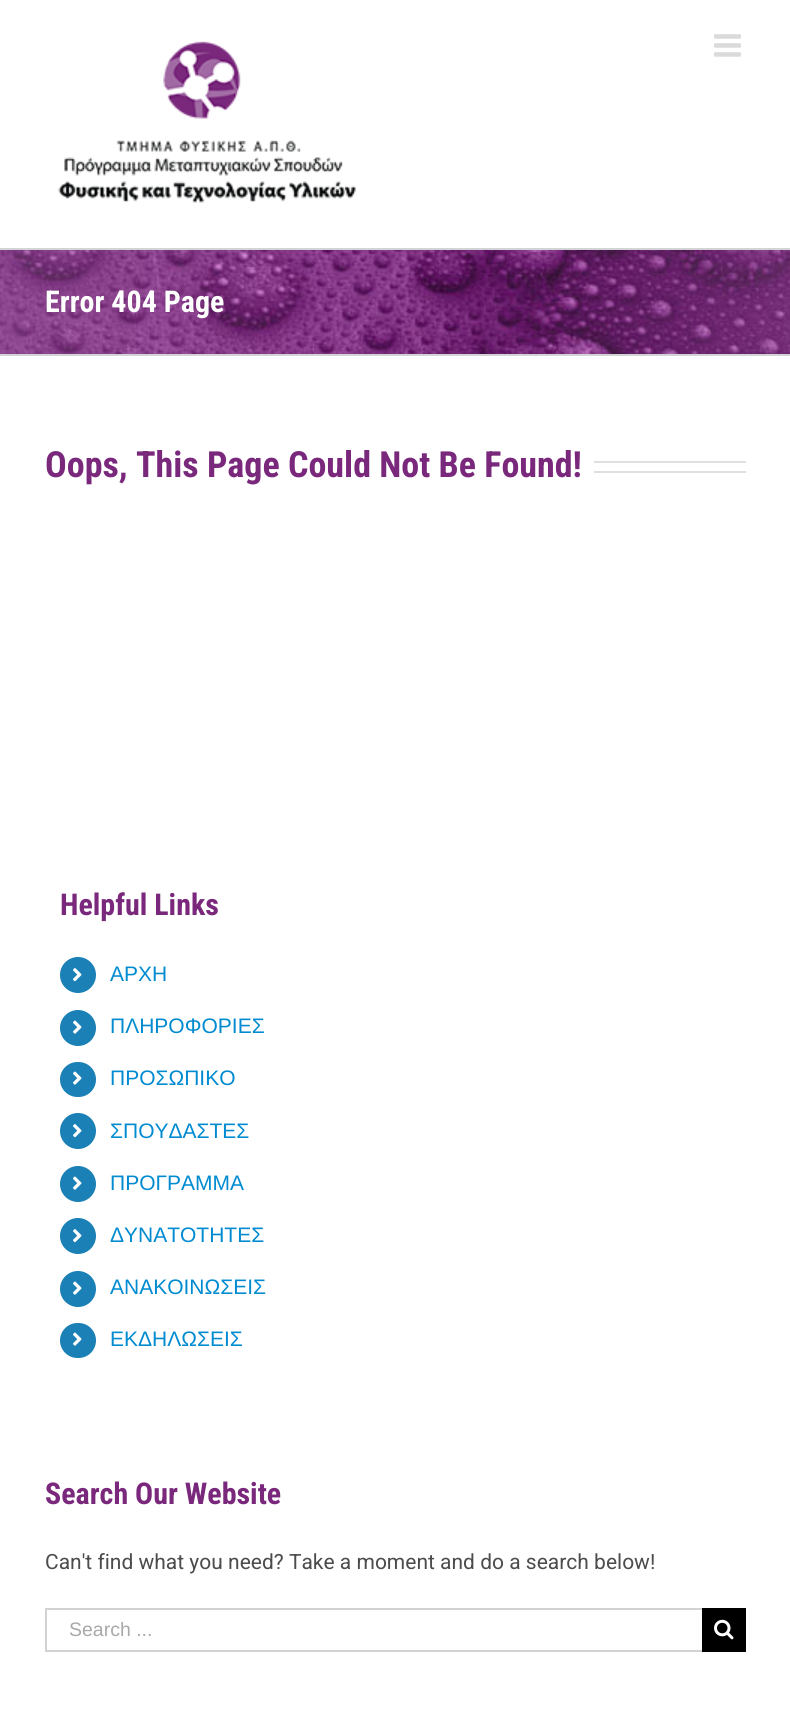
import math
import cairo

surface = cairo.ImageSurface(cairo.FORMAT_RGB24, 790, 1725)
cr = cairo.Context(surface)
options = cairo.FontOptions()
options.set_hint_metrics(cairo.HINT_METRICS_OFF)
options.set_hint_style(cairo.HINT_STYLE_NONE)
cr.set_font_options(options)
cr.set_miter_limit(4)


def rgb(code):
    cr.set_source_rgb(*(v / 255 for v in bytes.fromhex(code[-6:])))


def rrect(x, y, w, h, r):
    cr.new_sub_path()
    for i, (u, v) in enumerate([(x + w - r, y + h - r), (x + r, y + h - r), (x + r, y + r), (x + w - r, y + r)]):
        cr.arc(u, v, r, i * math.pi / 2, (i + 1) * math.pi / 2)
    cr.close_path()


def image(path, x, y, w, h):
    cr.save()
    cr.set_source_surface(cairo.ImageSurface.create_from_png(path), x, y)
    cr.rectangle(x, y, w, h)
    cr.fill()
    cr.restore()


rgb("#ffffff")
cr.paint()
image("img/1.png", 58, 41, 298, 162)
image("img/2.png", 714, 34, 27, 23)
image("img/3.png", 0, 250, 790, 104)
for x, y, w, h, color in [
    (0, 248, 790, 2, "#d2d3d4"),
    (0, 354, 790, 2, "#d2d3d4"),
    (594, 461, 152, 2, "#e0dede"),
    (594, 471, 152, 2, "#e0dede"),
]:
    rgb(color)
    cr.rectangle(x, y, w, h)
    cr.fill()
rgb("#1a80b6")
cr.arc(78, 975, 18, 0, 2 * math.pi)
cr.fill()
image("img/4.png", 73, 968, 9, 14)
cr.arc(78, 1028, 18, 0, 2 * math.pi)
cr.fill()
image("img/5.png", 73, 1020, 9, 14)
rrect(60, 1062, 36, 35, 17.5)
cr.fill()
image("img/5.png", 73, 1071, 9, 14)
cr.arc(78, 1131, 18, 0, 2 * math.pi)
cr.fill()
image("img/4.png", 73, 1124, 9, 14)
cr.arc(78, 1184, 18, 0, 2 * math.pi)
cr.fill()
image("img/5.png", 73, 1176, 9, 14)
cr.arc(78, 1236, 18, 0, 2 * math.pi)
cr.fill()
image("img/4.png", 73, 1229, 9, 14)
cr.arc(78, 1289, 18, 0, 2 * math.pi)
cr.fill()
image("img/5.png", 73, 1281, 9, 14)
rrect(60, 1323, 36, 35, 17.5)
cr.fill()
image("img/5.png", 73, 1332, 9, 14)
for x, y, w, h, color in [
    (45, 1608, 657, 2, "#d2d2d2"),
    (45, 1650, 657, 2, "#d2d2d2"),
    (45, 1608, 2, 44, "#d2d2d2"),
    (702, 1608, 44, 44, "#000000"),
]:
    rgb(color)
    cr.rectangle(x, y, w, h)
    cr.fill()
image("img/6.png", 714, 1619, 20, 21)
cr.select_font_face("Roboto Condensed", cairo.FONT_SLANT_NORMAL, cairo.FONT_WEIGHT_BOLD)
cr.set_font_size(30)
rgb("#ffffff")
cr.move_to(45, 312)
cr.show_text("Error 404 Page")
cr.set_font_size(36)
rgb("#79287c")
cr.move_to(45, 477)
cr.show_text("Oops, This Page Could Not Be Found!")
cr.set_font_size(30)
cr.move_to(60, 915)
cr.show_text("Helpful Links")
cr.select_font_face("Liberation Sans")
cr.set_font_size(21)
rgb("#008bd1")
for x, y, s in [
    (110, 981, "ΑΡΧΗ"),
    (110, 1033, "ΠΛΗΡΟΦΟΡΙΕΣ"),
    (110, 1085, "ΠΡΟΣΩΠΙΚΟ"),
    (110, 1138, "ΣΠΟΥΔΑΣΤΕΣ"),
    (110, 1190, "ΠΡΟΓΡΑΜΜΑ"),
    (110, 1242, "ΔΥΝΑΤΟΤΗΤΕΣ"),
    (110, 1294, "ΑΝΑΚΟΙΝΩΣΕΙΣ"),
    (110, 1346, "ΕΚΔΗΛΩΣΕΙΣ"),
]:
    cr.move_to(x, y)
    cr.show_text(s)
cr.select_font_face("Roboto Condensed", cairo.FONT_SLANT_NORMAL, cairo.FONT_WEIGHT_BOLD)
cr.set_font_size(30)
rgb("#79287c")
cr.move_to(45, 1504)
cr.show_text("Search Our Website")
cr.select_font_face("Roboto")
cr.set_font_size(21)
rgb("#4c4c4c")
cr.move_to(45, 1569)
cr.show_text("Can't find what you need? Take a moment and do a search below!")
cr.select_font_face("Liberation Sans")
cr.set_font_size(19.5)
rgb("#aaa9a9")
cr.move_to(69, 1636)
cr.show_text("Search ...")
surface.write_to_png("page.png")
